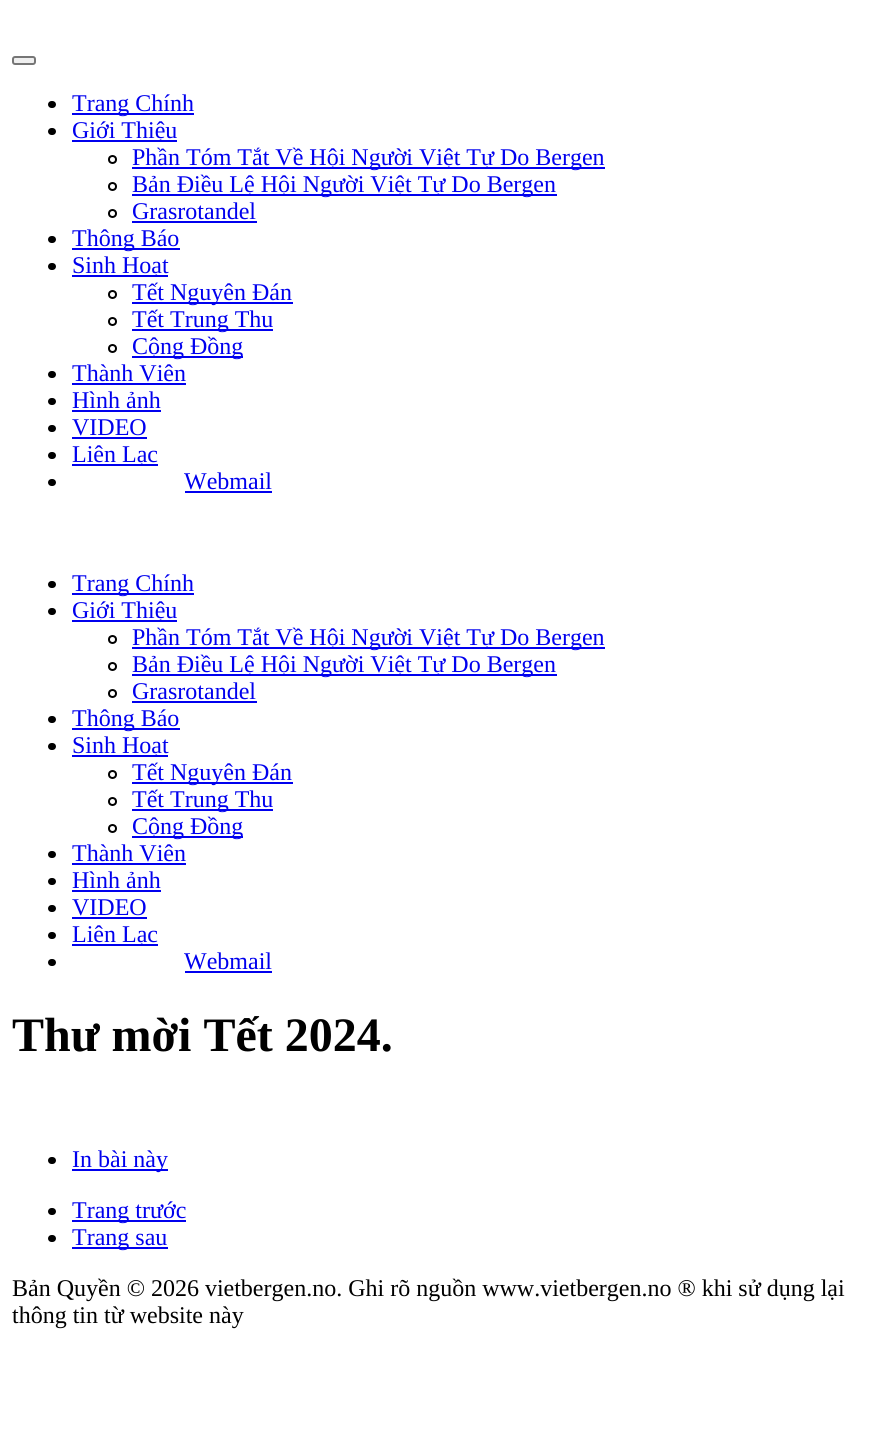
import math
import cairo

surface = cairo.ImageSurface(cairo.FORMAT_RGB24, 894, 1454)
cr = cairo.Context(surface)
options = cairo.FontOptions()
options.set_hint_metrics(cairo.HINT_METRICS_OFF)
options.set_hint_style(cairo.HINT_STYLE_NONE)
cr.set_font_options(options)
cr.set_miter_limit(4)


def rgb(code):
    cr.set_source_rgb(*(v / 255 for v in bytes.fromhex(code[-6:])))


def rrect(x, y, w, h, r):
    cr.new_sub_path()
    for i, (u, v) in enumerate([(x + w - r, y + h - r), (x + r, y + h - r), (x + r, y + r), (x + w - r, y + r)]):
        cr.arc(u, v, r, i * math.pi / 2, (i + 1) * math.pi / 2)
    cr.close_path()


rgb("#ffffff")
cr.paint()
rgb("#efefef")
rrect(13, 57, 22, 7, 2)
cr.fill_preserve()
rgb("#767676")
cr.stroke()
rgb("#000000")
rrect(48, 101, 8, 7, 3.5)
cr.fill()
rgb("#0000ee")
cr.rectangle(72, 113, 122, 2)
cr.fill()
rgb("#000000")
rrect(48, 128, 8, 7, 3.5)
cr.fill()
rgb("#0000ee")
cr.rectangle(72, 140, 105, 2)
cr.fill()
cr.arc(112.5, 159.5, 3.5, 0, 2 * math.pi)
rgb("#000000")
cr.stroke()
rgb("#0000ee")
cr.rectangle(132, 167, 473, 2)
cr.fill()
cr.arc(112.5, 186.5, 3.5, 0, 2 * math.pi)
rgb("#000000")
cr.stroke()
rgb("#0000ee")
cr.rectangle(132, 194, 425, 2)
cr.fill()
cr.arc(112.5, 213.5, 3.5, 0, 2 * math.pi)
rgb("#000000")
cr.stroke()
rgb("#0000ee")
cr.rectangle(132, 221, 125, 2)
cr.fill()
rgb("#000000")
rrect(48, 236, 8, 7, 3.5)
cr.fill()
rgb("#0000ee")
cr.rectangle(72, 248, 108, 2)
cr.fill()
rgb("#000000")
rrect(48, 263, 8, 7, 3.5)
cr.fill()
rgb("#0000ee")
cr.rectangle(72, 275, 96, 2)
cr.fill()
cr.arc(112.5, 294.5, 3.5, 0, 2 * math.pi)
rgb("#000000")
cr.stroke()
rgb("#0000ee")
cr.rectangle(132, 302, 161, 2)
cr.fill()
cr.arc(112.5, 321.5, 3.5, 0, 2 * math.pi)
rgb("#000000")
cr.stroke()
rgb("#0000ee")
cr.rectangle(132, 329, 141, 2)
cr.fill()
cr.arc(112.5, 348.5, 3.5, 0, 2 * math.pi)
rgb("#000000")
cr.stroke()
rgb("#0000ee")
cr.rectangle(132, 356, 111, 2)
cr.fill()
rgb("#000000")
rrect(48, 371, 8, 7, 3.5)
cr.fill()
rgb("#0000ee")
cr.rectangle(72, 383, 114, 2)
cr.fill()
rgb("#000000")
rrect(48, 398, 8, 7, 3.5)
cr.fill()
rgb("#0000ee")
cr.rectangle(72, 410, 89, 2)
cr.fill()
rgb("#000000")
rrect(48, 425, 8, 7, 3.5)
cr.fill()
rgb("#0000ee")
cr.rectangle(72, 437, 75, 2)
cr.fill()
rgb("#000000")
rrect(48, 452, 8, 7, 3.5)
cr.fill()
rgb("#0000ee")
cr.rectangle(72, 464, 86, 2)
cr.fill()
rgb("#000000")
rrect(48, 479, 8, 7, 3.5)
cr.fill()
rgb("#0000ee")
cr.rectangle(185, 491, 87, 2)
cr.fill()
rgb("#000000")
rrect(48, 581, 8, 7, 3.5)
cr.fill()
rgb("#0000ee")
cr.rectangle(72, 593, 122, 2)
cr.fill()
rgb("#000000")
rrect(48, 608, 8, 7, 3.5)
cr.fill()
rgb("#0000ee")
cr.rectangle(72, 620, 105, 2)
cr.fill()
cr.arc(112.5, 639.5, 3.5, 0, 2 * math.pi)
rgb("#000000")
cr.stroke()
rgb("#0000ee")
cr.rectangle(132, 647, 473, 2)
cr.fill()
cr.arc(112.5, 666.5, 3.5, 0, 2 * math.pi)
rgb("#000000")
cr.stroke()
rgb("#0000ee")
cr.rectangle(132, 674, 425, 2)
cr.fill()
cr.arc(112.5, 693.5, 3.5, 0, 2 * math.pi)
rgb("#000000")
cr.stroke()
rgb("#0000ee")
cr.rectangle(132, 701, 125, 2)
cr.fill()
rgb("#000000")
rrect(48, 716, 8, 7, 3.5)
cr.fill()
rgb("#0000ee")
cr.rectangle(72, 728, 108, 2)
cr.fill()
rgb("#000000")
rrect(48, 743, 8, 7, 3.5)
cr.fill()
rgb("#0000ee")
cr.rectangle(72, 755, 96, 2)
cr.fill()
cr.arc(112.5, 774.5, 3.5, 0, 2 * math.pi)
rgb("#000000")
cr.stroke()
rgb("#0000ee")
cr.rectangle(132, 782, 161, 2)
cr.fill()
cr.arc(112.5, 801.5, 3.5, 0, 2 * math.pi)
rgb("#000000")
cr.stroke()
rgb("#0000ee")
cr.rectangle(132, 809, 141, 2)
cr.fill()
cr.arc(112.5, 828.5, 3.5, 0, 2 * math.pi)
rgb("#000000")
cr.stroke()
rgb("#0000ee")
cr.rectangle(132, 836, 111, 2)
cr.fill()
rgb("#000000")
rrect(48, 851, 8, 7, 3.5)
cr.fill()
rgb("#0000ee")
cr.rectangle(72, 863, 114, 2)
cr.fill()
rgb("#000000")
rrect(48, 878, 8, 7, 3.5)
cr.fill()
rgb("#0000ee")
cr.rectangle(72, 890, 89, 2)
cr.fill()
rgb("#000000")
rrect(48, 905, 8, 7, 3.5)
cr.fill()
rgb("#0000ee")
cr.rectangle(72, 917, 75, 2)
cr.fill()
rgb("#000000")
rrect(48, 932, 8, 7, 3.5)
cr.fill()
rgb("#0000ee")
cr.rectangle(72, 944, 86, 2)
cr.fill()
rgb("#000000")
rrect(48, 959, 8, 7, 3.5)
cr.fill()
rgb("#0000ee")
cr.rectangle(185, 971, 87, 2)
cr.fill()
rgb("#000000")
rrect(48, 1157, 8, 7, 3.5)
cr.fill()
rgb("#0000ee")
cr.rectangle(72, 1169, 96, 2)
cr.fill()
rgb("#000000")
rrect(48, 1208, 8, 7, 3.5)
cr.fill()
rgb("#0000ee")
cr.rectangle(72, 1220, 114, 2)
cr.fill()
rgb("#000000")
rrect(48, 1235, 8, 7, 3.5)
cr.fill()
rgb("#0000ee")
cr.rectangle(72, 1247, 96, 2)
cr.fill()
cr.select_font_face("Liberation Serif")
cr.set_font_size(24)
for x, y, s in [
    (72, 111, "Trang Chính"),
    (72, 138, "Giới Thiệu"),
    (132, 165, "Phần Tóm Tắt Về Hội Người Việt Tự Do Bergen"),
    (132, 192, "Bản Điều Lệ Hội Người Việt Tự Do Bergen"),
    (132, 219, "Grasrotandel"),
    (72, 246, "Thông Báo"),
    (72, 273, "Sinh Hoạt"),
    (132, 300, "Tết Nguyên Đán"),
    (132, 327, "Tết Trung Thu"),
    (132, 354, "Cộng Đồng"),
    (72, 381, "Thành Viên"),
    (72, 408, "Hình ảnh"),
    (72, 435, "VIDEO"),
    (72, 462, "Liên Lạc"),
    (184, 489, "Webmail"),
    (72, 591, "Trang Chính"),
    (72, 618, "Giới Thiệu"),
    (132, 645, "Phần Tóm Tắt Về Hội Người Việt Tự Do Bergen"),
    (132, 672, "Bản Điều Lệ Hội Người Việt Tự Do Bergen"),
    (132, 699, "Grasrotandel"),
    (72, 726, "Thông Báo"),
    (72, 753, "Sinh Hoạt"),
    (132, 780, "Tết Nguyên Đán"),
    (132, 807, "Tết Trung Thu"),
    (132, 834, "Cộng Đồng"),
    (72, 861, "Thành Viên"),
    (72, 888, "Hình ảnh"),
    (72, 915, "VIDEO"),
    (72, 942, "Liên Lạc"),
    (184, 969, "Webmail"),
]:
    cr.move_to(x, y)
    cr.show_text(s)
cr.select_font_face("Liberation Serif", cairo.FONT_SLANT_NORMAL, cairo.FONT_WEIGHT_BOLD)
cr.set_font_size(48)
rgb("#000000")
cr.move_to(12, 1051)
cr.show_text("Thư mời Tết 2024.")
cr.select_font_face("Liberation Serif")
cr.set_font_size(24)
rgb("#0000ee")
for x, y, s in [
    (72, 1167, "In bài này"),
    (72, 1218, "Trang trước"),
    (72, 1245, "Trang sau"),
]:
    cr.move_to(x, y)
    cr.show_text(s)
rgb("#000000")
cr.move_to(12, 1296)
cr.show_text("Bản Quyền © 2026 vietbergen.no. Ghi rõ nguồn www.vietbergen.no ® khi sử dụng lại")
cr.move_to(12, 1323)
cr.show_text("thông tin từ website này")
surface.write_to_png("page.png")
